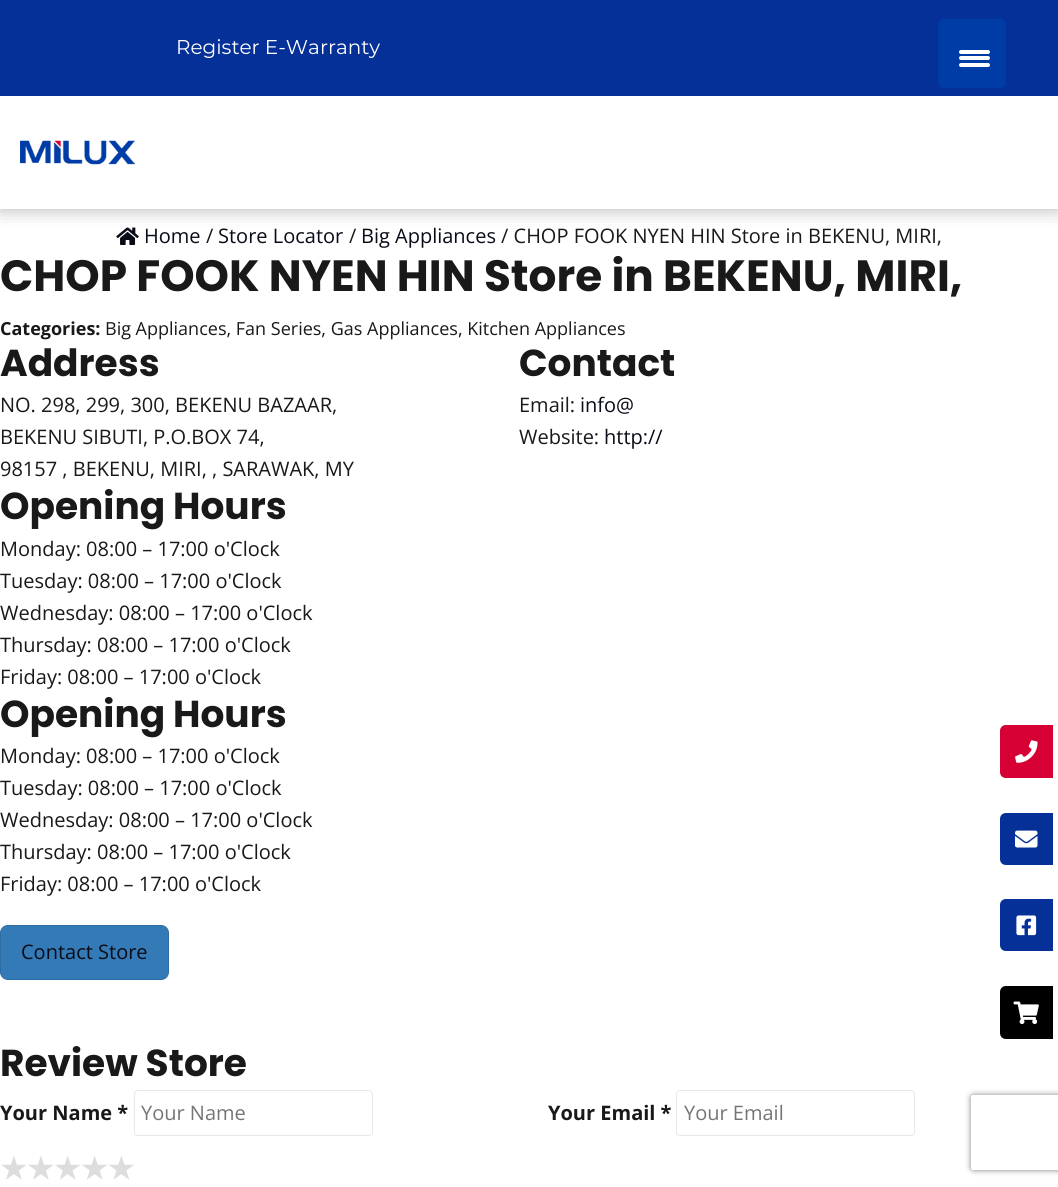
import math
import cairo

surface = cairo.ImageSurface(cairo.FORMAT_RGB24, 1058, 1187)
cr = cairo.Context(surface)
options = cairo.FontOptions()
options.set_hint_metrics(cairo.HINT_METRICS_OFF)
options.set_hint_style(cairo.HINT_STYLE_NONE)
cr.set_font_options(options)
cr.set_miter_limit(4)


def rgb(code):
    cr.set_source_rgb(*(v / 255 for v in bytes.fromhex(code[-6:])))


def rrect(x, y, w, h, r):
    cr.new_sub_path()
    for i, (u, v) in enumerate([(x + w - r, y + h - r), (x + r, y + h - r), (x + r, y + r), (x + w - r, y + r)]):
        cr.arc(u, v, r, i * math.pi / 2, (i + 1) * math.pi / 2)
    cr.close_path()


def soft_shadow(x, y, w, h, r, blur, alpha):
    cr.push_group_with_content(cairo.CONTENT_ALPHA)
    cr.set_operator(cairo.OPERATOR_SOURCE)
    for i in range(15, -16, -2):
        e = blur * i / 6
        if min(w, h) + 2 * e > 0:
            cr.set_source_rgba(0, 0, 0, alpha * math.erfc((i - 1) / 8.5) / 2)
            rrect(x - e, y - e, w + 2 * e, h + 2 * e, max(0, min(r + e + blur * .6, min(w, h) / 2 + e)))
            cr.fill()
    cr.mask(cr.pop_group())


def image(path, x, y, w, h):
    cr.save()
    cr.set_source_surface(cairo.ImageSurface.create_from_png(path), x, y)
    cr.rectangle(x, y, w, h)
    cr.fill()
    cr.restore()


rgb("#ffffff")
cr.paint()
image("img/2.png", 116, 227, 23, 18)
rgb("#000000")
soft_shadow(0, 96, 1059, 113, 0, 9.5, 0.3)
rgb("#053097")
cr.rectangle(0, 0, 1058, 96)
cr.fill()
rgb("#ffffff")
cr.rectangle(0, 96, 1058, 113)
cr.fill()
image("img/1.png", 20, 140, 115, 25)
rgb("#003ca6")
rrect(938, 19, 68, 69, 6)
cr.fill()
rgb("#ffffff")
rrect(959, 56, 31, 4, 2)
cr.fill()
rrect(959, 50, 31, 4, 2)
cr.fill()
rrect(959, 63, 31, 4, 2)
cr.fill()
rgb("#337ab7")
rrect(0.5, 925.5, 168, 54, 7.5)
cr.fill_preserve()
rgb("#2e6da4")
cr.set_line_width(1)
cr.stroke()
rrect(134.5, 1090.5, 238, 45, 3.5)
rgb("#e8e8e8")
cr.stroke()
rrect(676.5, 1090.5, 238, 45, 3.5)
cr.stroke()
rgb("#d70035")
cr.new_path()
cr.move_to(1006, 725)
cr.line_to(1053, 725)
cr.line_to(1053, 778)
cr.line_to(1006, 778)
cr.curve_to(1002.5, 778, 1000, 775.5, 1000, 772)
cr.line_to(1000, 731)
cr.curve_to(1000, 727.5, 1002.5, 725, 1006, 725)
cr.close_path()
cr.fill()
image("img/3.png", 1015, 740, 23, 23)
rgb("#053097")
cr.new_path()
cr.move_to(1006, 813)
cr.line_to(1053, 813)
cr.line_to(1053, 865)
cr.line_to(1006, 865)
cr.curve_to(1002.5, 865, 1000, 862.5, 1000, 859)
cr.line_to(1000, 819)
cr.curve_to(1000, 815.5, 1002.5, 813, 1006, 813)
cr.close_path()
cr.fill()
image("img/4.png", 1015, 830, 23, 18)
cr.new_path()
cr.move_to(1006, 899)
cr.line_to(1053, 899)
cr.line_to(1053, 951)
cr.line_to(1006, 951)
cr.curve_to(1002.5, 951, 1000, 948.5, 1000, 945)
cr.line_to(1000, 905)
cr.curve_to(1000, 901.5, 1002.5, 899, 1006, 899)
cr.close_path()
cr.fill()
image("img/5.png", 1016, 915, 21, 21)
rgb("#000000")
cr.new_path()
cr.move_to(1006, 986)
cr.line_to(1053, 986)
cr.line_to(1053, 1039)
cr.line_to(1006, 1039)
cr.curve_to(1002.5, 1039, 1000, 1036.5, 1000, 1033)
cr.line_to(1000, 992)
cr.curve_to(1000, 988.5, 1002.5, 986, 1006, 986)
cr.close_path()
cr.fill()
image("img/6.png", 1013, 1001, 26, 23)
cr.save()
cr.set_fill_rule(cairo.FILL_RULE_EVEN_ODD)
cr.new_path()
cr.move_to(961, 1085)
cr.line_to(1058, 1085)
cr.line_to(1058, 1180)
cr.line_to(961, 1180)
cr.close_path()
cr.move_to(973.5, 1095)
cr.line_to(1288.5, 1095)
cr.curve_to(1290, 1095, 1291, 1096, 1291, 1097.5)
cr.line_to(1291, 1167.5)
cr.curve_to(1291, 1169, 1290, 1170, 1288.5, 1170)
cr.line_to(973.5, 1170)
cr.curve_to(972, 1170, 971, 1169, 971, 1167.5)
cr.line_to(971, 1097.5)
cr.curve_to(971, 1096, 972, 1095, 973.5, 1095)
cr.close_path()
cr.clip()
rgb("#808080")
soft_shadow(971, 1095, 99, 75, 2.5, 3, 1)
cr.restore()
cr.select_font_face("Montserrat")
cr.set_font_size(20)
rgb("#ffffff")
cr.move_to(176, 54)
cr.show_text("Register E-Warranty")
cr.select_font_face("Open Sans")
rgb("#090b17")
cr.move_to(144, 243)
cr.show_text("Home")
rgb("#191919")
cr.move_to(206, 243)
cr.show_text("/")
rgb("#090b17")
cr.move_to(218, 243)
cr.show_text("Store Locator")
rgb("#191919")
cr.move_to(349, 243)
cr.show_text("/")
rgb("#090b17")
cr.move_to(361, 243)
cr.show_text("Big Appliances")
rgb("#191919")
cr.move_to(501, 243)
cr.show_text("/ CHOP FOOK NYEN HIN Store in BEKENU, MIRI,")
cr.select_font_face("Poppins", cairo.FONT_SLANT_NORMAL, cairo.FONT_WEIGHT_BOLD)
cr.set_font_size(43.75)
cr.move_to(0, 291)
cr.show_text("CHOP FOOK NYEN HIN Store in BEKENU, MIRI,")
cr.select_font_face("Open Sans", cairo.FONT_SLANT_NORMAL, cairo.FONT_WEIGHT_BOLD)
cr.set_font_size(18)
cr.move_to(0, 335)
cr.show_text("Categories:")
cr.select_font_face("Open Sans")
cr.move_to(105, 335)
cr.show_text("Big Appliances, Fan Series, Gas Appliances, Kitchen Appliances")
cr.select_font_face("Poppins", cairo.FONT_SLANT_NORMAL, cairo.FONT_WEIGHT_BOLD)
cr.set_font_size(37.5)
cr.move_to(0, 376)
cr.show_text("Address")
cr.select_font_face("Open Sans")
cr.set_font_size(20)
for x, y, s in [
    (0, 412, "NO. 298, 299, 300, BEKENU BAZAAR,"),
    (0, 444, "BEKENU SIBUTI, P.O.BOX 74,"),
    (0, 476, "98157 , BEKENU, MIRI, , SARAWAK, MY"),
]:
    cr.move_to(x, y)
    cr.show_text(s)
cr.select_font_face("Poppins", cairo.FONT_SLANT_NORMAL, cairo.FONT_WEIGHT_BOLD)
cr.set_font_size(37.5)
cr.move_to(519, 376)
cr.show_text("Contact")
cr.select_font_face("Open Sans")
cr.set_font_size(20)
cr.move_to(519, 412)
cr.show_text("Email:")
rgb("#090b17")
cr.move_to(580, 412)
cr.show_text("info@")
rgb("#191919")
cr.move_to(519, 444)
cr.show_text("Website:")
rgb("#090b17")
cr.move_to(604, 444)
cr.show_text("http://")
cr.select_font_face("Poppins", cairo.FONT_SLANT_NORMAL, cairo.FONT_WEIGHT_BOLD)
cr.set_font_size(37.5)
rgb("#191919")
cr.move_to(0, 519)
cr.show_text("Opening Hours")
cr.select_font_face("Open Sans")
cr.set_font_size(20)
for x, y, s in [
    (0, 556, "Monday: 08:00 – 17:00 o'Clock"),
    (0, 588, "Tuesday: 08:00 – 17:00 o'Clock"),
    (0, 620, "Wednesday: 08:00 – 17:00 o'Clock"),
    (0, 652, "Thursday: 08:00 – 17:00 o'Clock"),
    (0, 684, "Friday: 08:00 – 17:00 o'Clock"),
]:
    cr.move_to(x, y)
    cr.show_text(s)
cr.select_font_face("Poppins", cairo.FONT_SLANT_NORMAL, cairo.FONT_WEIGHT_BOLD)
cr.set_font_size(37.5)
cr.move_to(0, 727)
cr.show_text("Opening Hours")
cr.select_font_face("Open Sans")
cr.set_font_size(20)
for x, y, s in [
    (0, 763, "Monday: 08:00 – 17:00 o'Clock"),
    (0, 795, "Tuesday: 08:00 – 17:00 o'Clock"),
    (0, 827, "Wednesday: 08:00 – 17:00 o'Clock"),
    (0, 859, "Thursday: 08:00 – 17:00 o'Clock"),
    (0, 891, "Friday: 08:00 – 17:00 o'Clock"),
]:
    cr.move_to(x, y)
    cr.show_text(s)
rgb("#090b17")
cr.move_to(21, 959)
cr.show_text("Contact Store")
cr.select_font_face("Poppins", cairo.FONT_SLANT_NORMAL, cairo.FONT_WEIGHT_BOLD)
cr.set_font_size(37.5)
rgb("#191919")
cr.move_to(0, 1076)
cr.show_text("Review Store")
cr.select_font_face("Open Sans", cairo.FONT_SLANT_NORMAL, cairo.FONT_WEIGHT_BOLD)
cr.set_font_size(20)
cr.move_to(0, 1120)
cr.show_text("Your Name *")
cr.select_font_face("Open Sans")
rgb("#757575")
cr.move_to(141, 1120)
cr.show_text("Your Name")
cr.select_font_face("Open Sans", cairo.FONT_SLANT_NORMAL, cairo.FONT_WEIGHT_BOLD)
rgb("#191919")
cr.move_to(548, 1120)
cr.show_text("Your Email *")
cr.select_font_face("Open Sans")
rgb("#757575")
cr.move_to(684, 1120)
cr.show_text("Your Email")
cr.select_font_face("DejaVu Sans", cairo.FONT_SLANT_NORMAL, cairo.FONT_WEIGHT_BOLD)
cr.set_font_size(30)
rgb("#dddddd")
cr.move_to(0, 1179)
cr.show_text("★★★★★")
surface.write_to_png("page.png")
